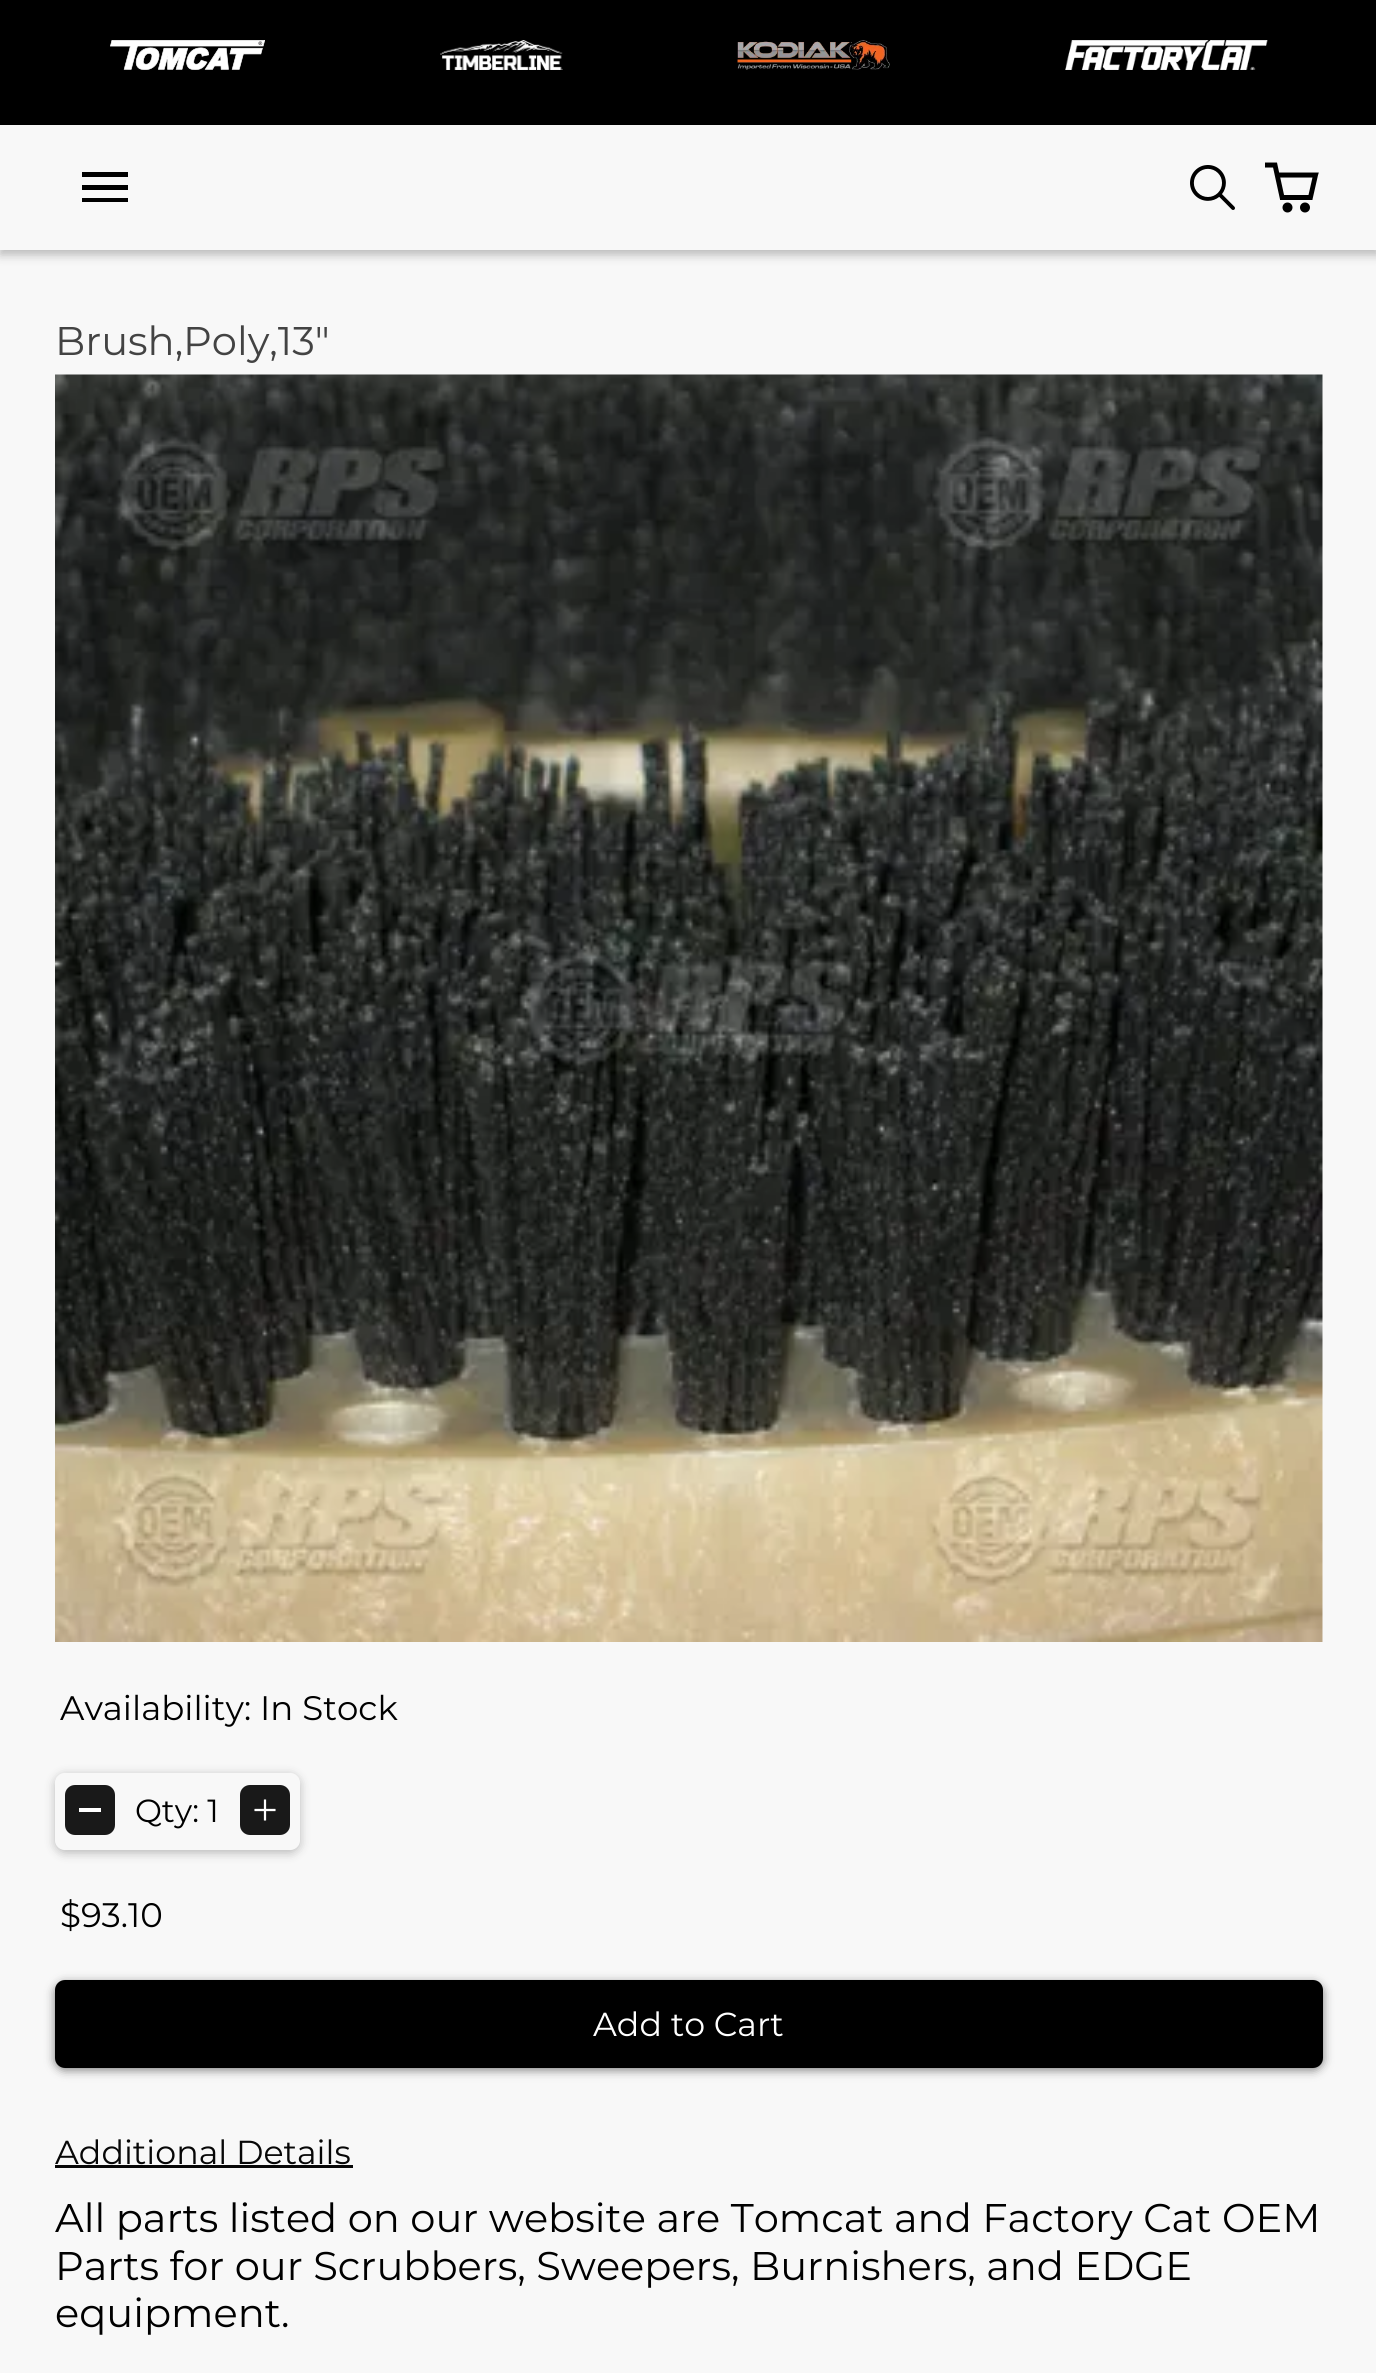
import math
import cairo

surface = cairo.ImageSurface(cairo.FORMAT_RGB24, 1376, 2373)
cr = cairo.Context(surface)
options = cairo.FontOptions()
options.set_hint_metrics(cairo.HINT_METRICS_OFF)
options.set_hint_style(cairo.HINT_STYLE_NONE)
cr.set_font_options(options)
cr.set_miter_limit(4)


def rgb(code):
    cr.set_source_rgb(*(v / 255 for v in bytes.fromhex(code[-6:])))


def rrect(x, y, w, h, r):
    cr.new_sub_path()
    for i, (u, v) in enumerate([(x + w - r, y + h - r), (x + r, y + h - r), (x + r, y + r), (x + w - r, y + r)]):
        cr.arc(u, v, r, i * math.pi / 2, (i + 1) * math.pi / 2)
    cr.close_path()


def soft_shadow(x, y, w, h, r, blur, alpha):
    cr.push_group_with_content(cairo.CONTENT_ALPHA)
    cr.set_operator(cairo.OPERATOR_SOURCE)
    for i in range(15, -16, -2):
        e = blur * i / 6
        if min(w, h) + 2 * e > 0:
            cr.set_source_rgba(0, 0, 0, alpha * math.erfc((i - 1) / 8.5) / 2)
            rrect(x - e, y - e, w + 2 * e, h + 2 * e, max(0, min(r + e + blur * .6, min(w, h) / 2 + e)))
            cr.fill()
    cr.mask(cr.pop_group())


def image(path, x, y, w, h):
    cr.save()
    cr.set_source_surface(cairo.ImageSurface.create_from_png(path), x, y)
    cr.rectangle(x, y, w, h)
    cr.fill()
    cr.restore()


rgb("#f8f8f8")
cr.paint()
rgb("#000000")
cr.rectangle(0, 0, 1376, 125)
cr.fill()
image("img/1.png", 110, 40, 155, 30)
image("img/2.png", 440, 40, 123, 30)
image("img/3.png", 737, 40, 153, 30)
image("img/4.png", 1065, 40, 203, 30)
rgb("#000000")
soft_shadow(0, 130, 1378, 125, 0, 5, 0.25)
rgb("#f8f8f8")
cr.rectangle(0, 125, 1376, 125)
cr.fill()
rgb("#000000")
cr.new_path()
cr.move_to(82, 202)
cr.line_to(128, 202)
cr.line_to(128, 198)
cr.line_to(82, 198)
cr.close_path()
cr.move_to(82, 190)
cr.line_to(128, 190)
cr.line_to(128, 185)
cr.line_to(82, 185)
cr.close_path()
cr.move_to(82, 172)
cr.line_to(82, 177)
cr.line_to(128, 177)
cr.line_to(128, 172)
cr.close_path()
cr.fill()
image("img/5.png", 1190, 165, 45, 45)
image("img/6.png", 1265, 162, 54, 51)
image("img/7.png", 55, 374, 1268, 1268)
cr.save()
cr.set_fill_rule(cairo.FILL_RULE_EVEN_ODD)
cr.new_path()
cr.move_to(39, 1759)
cr.line_to(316, 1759)
cr.line_to(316, 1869)
cr.line_to(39, 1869)
cr.close_path()
cr.move_to(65, 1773)
cr.line_to(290, 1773)
cr.curve_to(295.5, 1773, 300, 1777.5, 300, 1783)
cr.line_to(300, 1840)
cr.curve_to(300, 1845.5, 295.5, 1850, 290, 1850)
cr.line_to(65, 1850)
cr.curve_to(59.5, 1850, 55, 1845.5, 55, 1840)
cr.line_to(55, 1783)
cr.curve_to(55, 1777.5, 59.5, 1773, 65, 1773)
cr.close_path()
cr.clip()
rgb("#000000")
soft_shadow(55, 1775, 245, 78, 10, 5, 0.25)
cr.restore()
rgb("#191919")
rrect(65, 1785, 50, 50, 10)
cr.fill()
rgb("#ffffff")
cr.rectangle(79, 1808, 22, 4)
cr.fill()
rgb("#191919")
rrect(240, 1785, 50, 50, 10)
cr.fill()
image("img/8.png", 254, 1799, 22, 22)
rgb("#000000")
soft_shadow(55, 1983, 1268, 87, 10, 5, 0.5)
rgb("#000000")
rrect(55, 1980, 1268, 88, 10)
cr.fill()
rgb("#070707")
cr.rectangle(55, 2165, 298, 3)
cr.fill()
cr.select_font_face("Montserrat")
cr.set_font_size(40)
rgb("#434343")
cr.move_to(55, 355)
cr.show_text("Brush,Poly,13\"")
cr.set_font_size(34)
rgb("#000000")
cr.move_to(60, 1720)
cr.show_text("Availability: In Stock")
cr.set_font_size(32)
cr.move_to(135, 1822)
cr.show_text("Qty: 1")
cr.set_font_size(34)
cr.move_to(60, 1927)
cr.show_text("$93.10")
cr.set_font_size(33.25)
rgb("#ffffff")
cr.move_to(593, 2036)
cr.show_text("Add to Cart")
rgb("#070707")
cr.move_to(55, 2164)
cr.show_text("Additional Details")
cr.set_font_size(40)
rgb("#000000")
for x, y, s in [
    (55, 2232, "All parts listed on our website are Tomcat and Factory Cat OEM"),
    (55, 2280, "Parts for our Scrubbers, Sweepers, Burnishers, and EDGE"),
    (55, 2327, "equipment."),
]:
    cr.move_to(x, y)
    cr.show_text(s)
surface.write_to_png("page.png")
